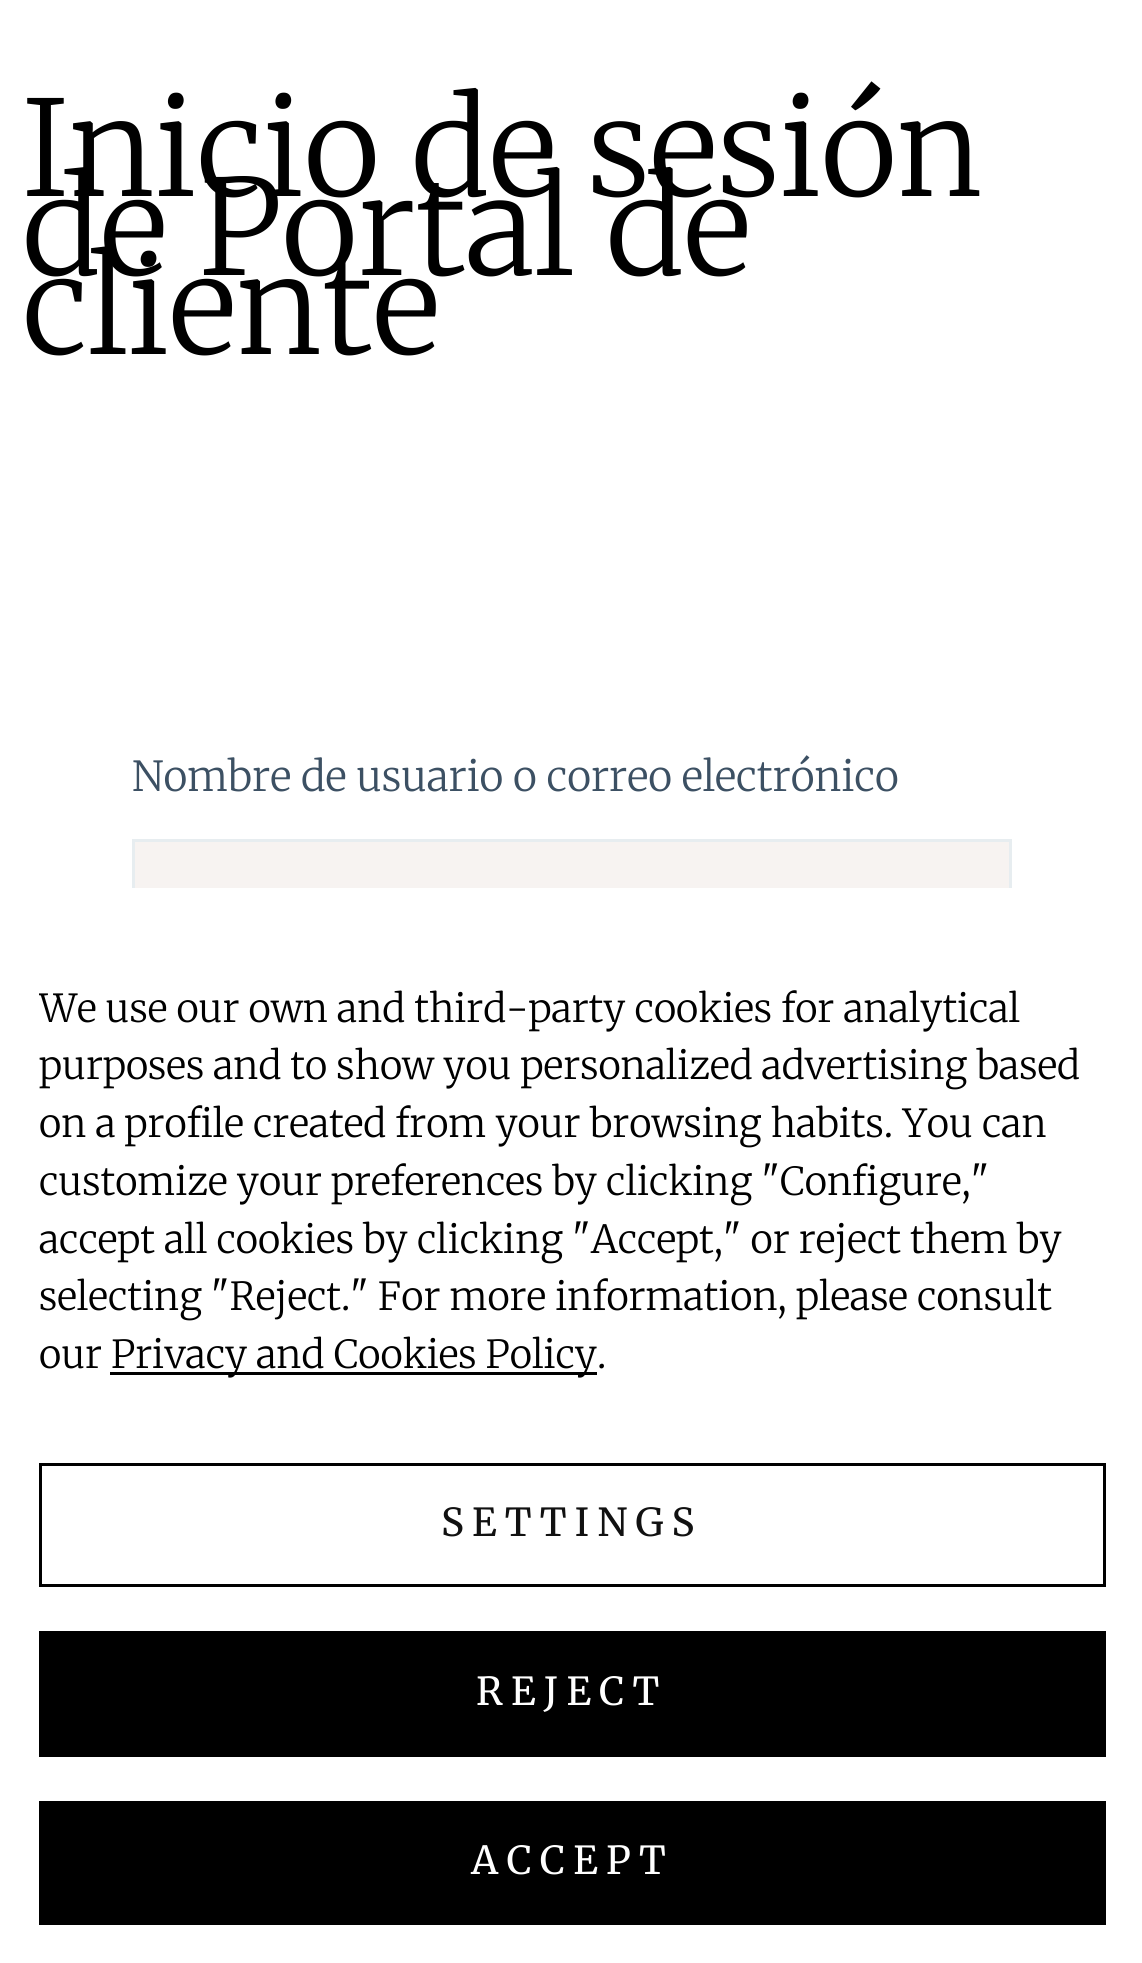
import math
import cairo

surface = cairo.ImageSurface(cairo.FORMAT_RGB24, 1142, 1963)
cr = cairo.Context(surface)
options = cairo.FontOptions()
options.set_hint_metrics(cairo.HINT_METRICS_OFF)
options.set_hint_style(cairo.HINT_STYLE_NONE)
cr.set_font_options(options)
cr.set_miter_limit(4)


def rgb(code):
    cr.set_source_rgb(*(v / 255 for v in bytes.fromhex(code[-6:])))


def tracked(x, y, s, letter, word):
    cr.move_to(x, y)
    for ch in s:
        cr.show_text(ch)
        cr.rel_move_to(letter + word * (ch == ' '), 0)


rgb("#ffffff")
cr.paint()
rgb("#f7f3f1")
cr.rectangle(135, 842, 874, 46)
cr.fill()
cr.rectangle(133.5, 840.5, 877, 192)
rgb("#e7edf0")
cr.set_line_width(3)
cr.stroke()
rgb("#ffffff")
cr.rectangle(132, 888, 880, 146)
cr.fill()
rgb("#000000")
cr.rectangle(110, 1372, 487, 3)
cr.fill()
cr.rectangle(40.5, 1464.5, 1064, 121)
cr.stroke()
cr.rectangle(39, 1631, 1067, 126)
cr.fill()
cr.rectangle(39, 1801, 1067, 124)
cr.fill()
cr.select_font_face("Merriweather Light")
cr.set_font_size(132)
for x, y, s in [
    (22, 196, "Inicio de sesión"),
    (22, 275, "de Portal de"),
    (22, 354, "cliente"),
]:
    cr.move_to(x, y)
    cr.show_text(s)
cr.set_font_size(41.25)
rgb("#3c5063")
cr.move_to(132, 791)
cr.show_text("Nombre de usuario o correo electrónico")
cr.save()
cr.rectangle(39, 982, 1067, 404)
cr.clip()
cr.set_font_size(38.5)
rgb("#000000")
cr.move_to(39, 1022)
cr.show_text("We use our own and third-party cookies for analytical")
cr.restore()
cr.set_font_size(38.5)
rgb("#000000")
for x, y, s in [
    (39, 1079, "purposes and to show you personalized advertising based"),
    (39, 1137, "on a profile created from your browsing habits. You can"),
    (39, 1195, "customize your preferences by clicking \"Configure,\""),
    (39, 1253, "accept all cookies by clicking \"Accept,\" or reject them by"),
    (39, 1310, "selecting \"Reject.\" For more information, please consult"),
    (39, 1368, "our"),
    (111, 1368, "Privacy and Cookies Policy."),
]:
    cr.move_to(x, y)
    cr.show_text(s)
cr.select_font_face("Merriweather")
rgb("#111111")
tracked(441, 1536, "SETTINGS", 8.25, 0)
rgb("#ffffff")
tracked(476, 1705, "REJECT", 8.25, 0)
tracked(471, 1874, "ACCEPT", 8.25, 0)
surface.write_to_png("page.png")
